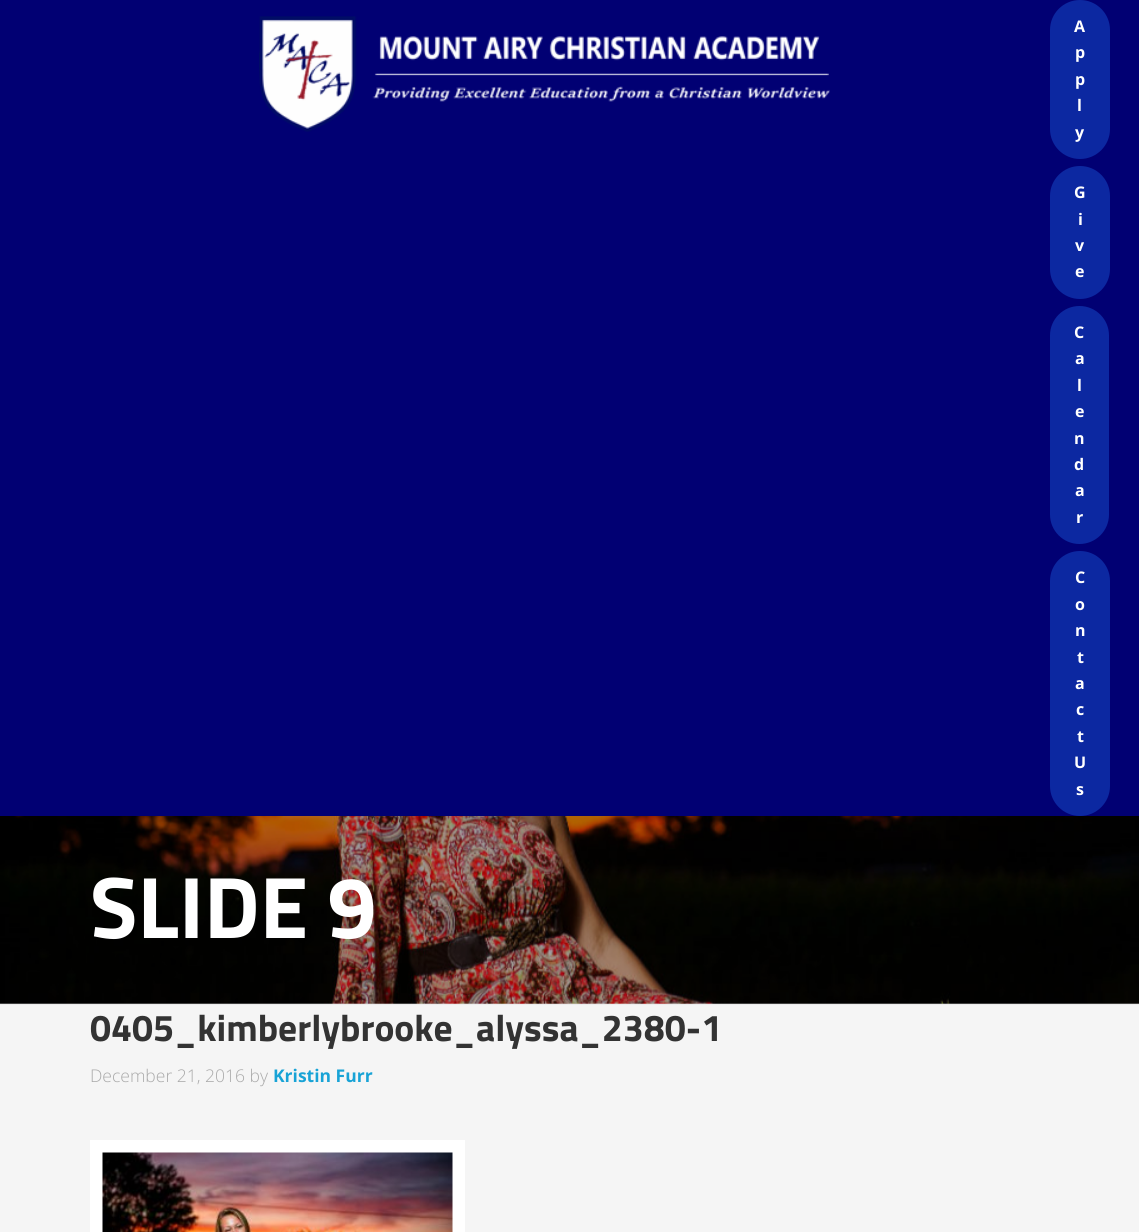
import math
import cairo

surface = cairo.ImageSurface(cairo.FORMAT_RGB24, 1139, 1232)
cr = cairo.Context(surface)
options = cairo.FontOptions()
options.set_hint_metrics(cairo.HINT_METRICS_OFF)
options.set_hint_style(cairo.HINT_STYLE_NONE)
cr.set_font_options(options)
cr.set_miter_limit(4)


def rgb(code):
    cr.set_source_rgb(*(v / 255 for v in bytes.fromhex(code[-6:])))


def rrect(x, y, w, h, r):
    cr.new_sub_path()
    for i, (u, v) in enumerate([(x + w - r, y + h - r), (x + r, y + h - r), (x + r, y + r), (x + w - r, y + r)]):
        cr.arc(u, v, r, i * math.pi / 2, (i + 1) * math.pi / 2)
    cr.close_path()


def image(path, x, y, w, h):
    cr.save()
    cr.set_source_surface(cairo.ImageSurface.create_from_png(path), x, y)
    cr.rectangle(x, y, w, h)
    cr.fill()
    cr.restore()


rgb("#ffffff")
cr.paint()
rgb("#010073")
cr.rectangle(0, 0, 1139, 816)
cr.fill()
image("img/1.png", 259, 16, 571, 116)
rgb("#0c28a1")
rrect(1050, 0, 60, 159, 30)
cr.fill()
rrect(1050, 166, 60, 133, 30)
cr.fill()
rrect(1050, 306, 59, 238, 29.5)
cr.fill()
rrect(1050, 551, 60, 265, 30)
cr.fill()
image("img/2.png", 0, 816, 1139, 188)
rgb("#f5f5f5")
cr.rectangle(0, 1005, 1139, 227)
cr.fill()
rgb("#ececec")
cr.rectangle(0, 1004, 1139, 1)
cr.fill()
cr.rectangle(96.5, 1146.5, 362, 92)
rgb("#ffffff")
cr.set_line_width(13)
cr.stroke()
image("img/3.png", 102, 1152, 351, 80)
cr.select_font_face("Open Sans", cairo.FONT_SLANT_NORMAL, cairo.FONT_WEIGHT_BOLD)
cr.set_font_size(16)
for x, y, s in [
    (1074, 32, "A"),
    (1075, 58, "p"),
    (1075, 85, "p"),
    (1077, 111, "l"),
    (1075, 138, "y"),
    (1074, 198, "G"),
    (1078, 225, "i"),
    (1075, 251, "v"),
    (1075, 277, "e"),
    (1074, 338, "C"),
    (1075, 364, "a"),
    (1077, 391, "l"),
    (1075, 417, "e"),
    (1074, 444, "n"),
    (1074, 470, "d"),
    (1075, 496, "a"),
    (1076, 523, "r"),
    (1075, 583, "C"),
    (1075, 610, "o"),
    (1075, 636, "n"),
    (1077, 663, "t"),
    (1075, 689, "a"),
    (1076, 715, "c"),
    (1077, 742, "t"),
    (1074, 768, "U"),
    (1076, 795, "s"),
]:
    cr.move_to(x, y)
    cr.show_text(s)
cr.select_font_face("Titillium Web", cairo.FONT_SLANT_NORMAL, cairo.FONT_WEIGHT_BOLD)
cr.set_font_size(87.5)
cr.move_to(90, 938)
cr.show_text("SLIDE 9")
cr.set_font_size(37.5)
rgb("#333333")
cr.move_to(90, 1041)
cr.show_text("0405_kimberlybrooke_alyssa_2380-1")
cr.select_font_face("Open Sans Light")
cr.set_font_size(17.5)
rgb("#aaaaaa")
cr.move_to(90, 1082)
cr.show_text("December 21, 2016 by")
cr.select_font_face("Open Sans", cairo.FONT_SLANT_NORMAL, cairo.FONT_WEIGHT_BOLD)
rgb("#18a3d6")
cr.move_to(273, 1082)
cr.show_text("Kristin Furr")
surface.write_to_png("page.png")
